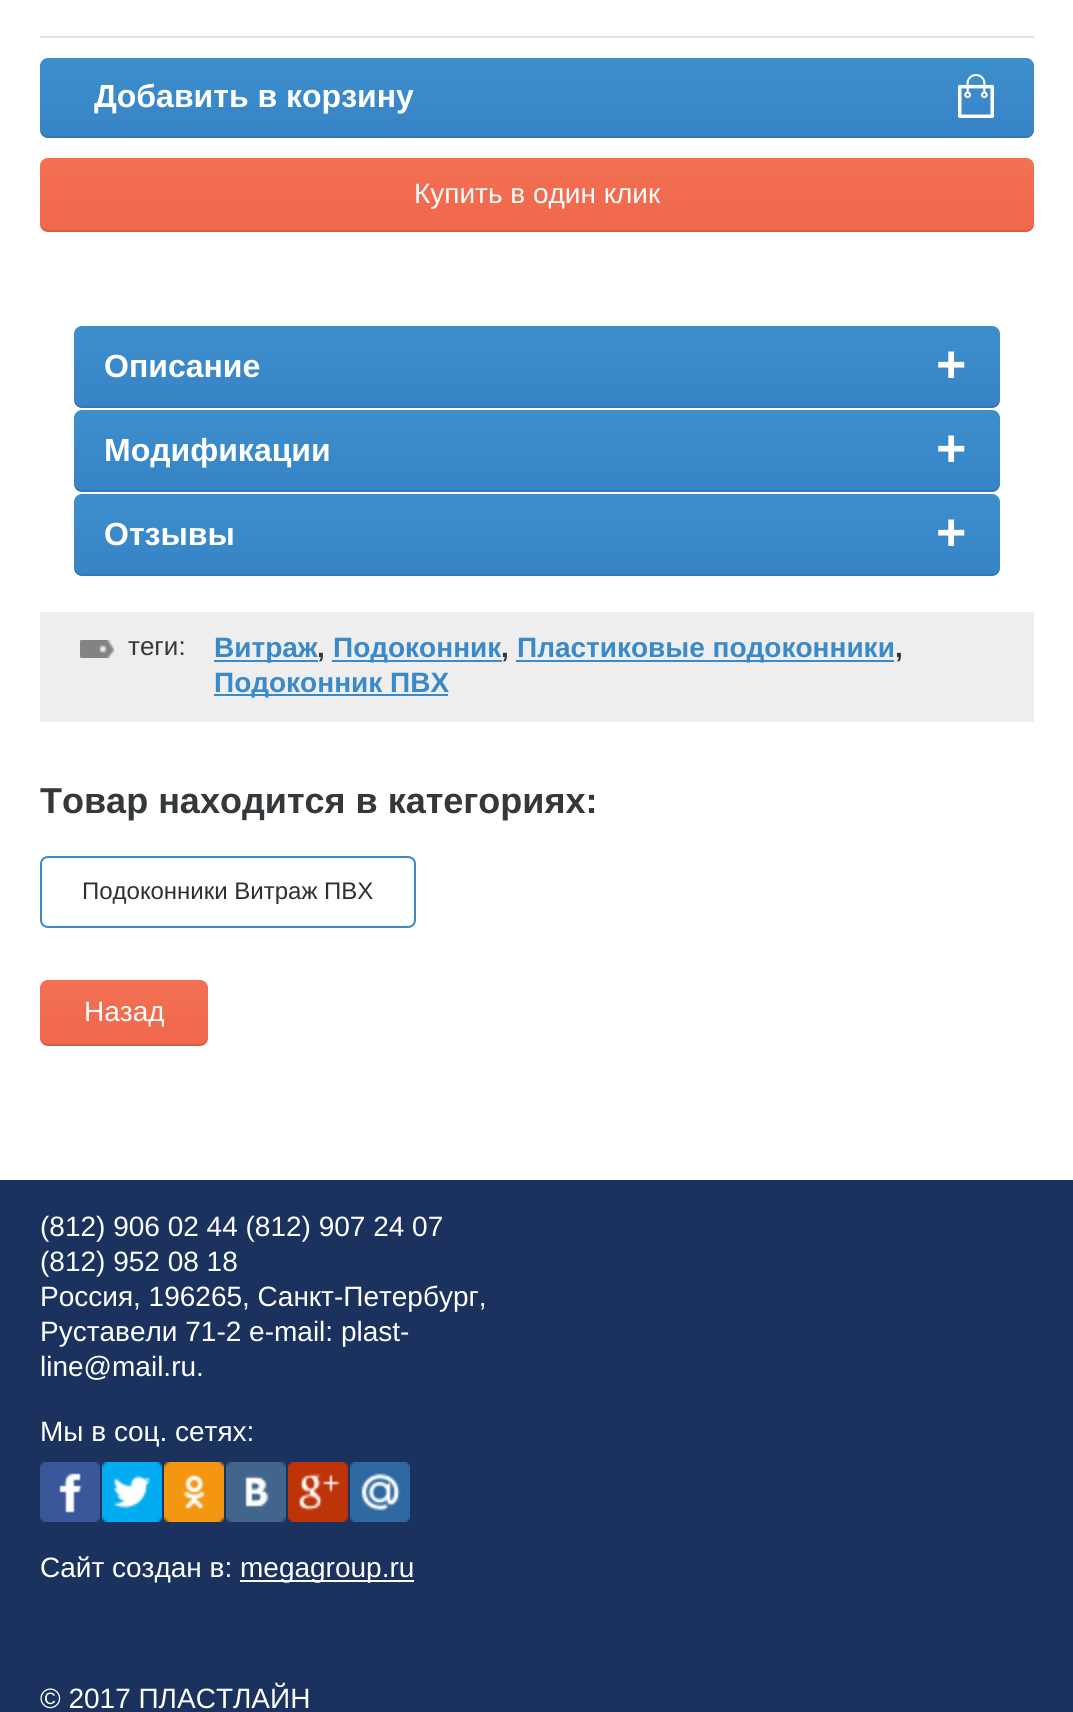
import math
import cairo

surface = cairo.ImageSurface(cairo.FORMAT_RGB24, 1073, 1712)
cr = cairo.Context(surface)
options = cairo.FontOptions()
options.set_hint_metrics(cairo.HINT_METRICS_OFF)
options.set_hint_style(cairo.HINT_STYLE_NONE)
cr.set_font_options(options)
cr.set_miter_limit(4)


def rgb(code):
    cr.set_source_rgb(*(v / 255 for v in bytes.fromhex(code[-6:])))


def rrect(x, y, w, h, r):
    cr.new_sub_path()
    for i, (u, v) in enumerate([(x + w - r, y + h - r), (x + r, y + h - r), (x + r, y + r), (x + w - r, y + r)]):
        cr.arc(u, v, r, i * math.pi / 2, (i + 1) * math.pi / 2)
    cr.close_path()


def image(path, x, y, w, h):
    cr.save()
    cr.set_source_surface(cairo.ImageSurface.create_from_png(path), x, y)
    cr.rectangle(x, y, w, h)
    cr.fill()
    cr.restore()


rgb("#ffffff")
cr.paint()
rgb("#e1e1e1")
cr.rectangle(40, 36, 994, 2)
cr.fill()
gradient = cairo.LinearGradient(537, 138, 537, 58)
gradient.add_color_stop_rgba(0, 0.216, 0.514, 0.776, 1)
gradient.add_color_stop_rgba(1, 0.239, 0.561, 0.8, 1)
cr.set_source(gradient)
rrect(40, 58, 994, 80, 8)
cr.fill()
cr.set_source_rgba(0, 0, 0, 0.1)
cr.new_path()
cr.move_to(40, 128)
cr.curve_to(40, 133, 42, 138, 48, 138)
cr.line_to(1026, 138)
cr.curve_to(1032, 138, 1034, 133, 1034, 128)
cr.curve_to(1034, 132, 1030, 136, 1026, 136)
cr.line_to(48, 136)
cr.curve_to(44, 136, 40, 132, 40, 128)
cr.close_path()
cr.fill()
image("img/1.png", 958, 74, 36, 44)
gradient = cairo.LinearGradient(537, 232, 537, 158)
gradient.add_color_stop_rgba(0, 0.945, 0.404, 0.294, 1)
gradient.add_color_stop_rgba(1, 0.953, 0.443, 0.325, 1)
cr.set_source(gradient)
rrect(40, 158, 994, 74, 8)
cr.fill()
cr.set_source_rgba(0, 0, 0, 0.1)
cr.new_path()
cr.move_to(40, 222)
cr.curve_to(40, 227, 42, 232, 48, 232)
cr.line_to(1026, 232)
cr.curve_to(1032, 232, 1034, 227, 1034, 222)
cr.curve_to(1034, 226, 1030, 230, 1026, 230)
cr.line_to(48, 230)
cr.curve_to(44, 230, 40, 226, 40, 222)
cr.close_path()
cr.fill()
gradient = cairo.LinearGradient(537, 408, 537, 326)
gradient.add_color_stop_rgba(0, 0.216, 0.514, 0.776, 1)
gradient.add_color_stop_rgba(1, 0.239, 0.561, 0.8, 1)
cr.set_source(gradient)
rrect(74, 326, 926, 82, 8)
cr.fill()
cr.set_source_rgba(0, 0, 0, 0.1)
cr.new_path()
cr.move_to(74, 398)
cr.line_to(74, 400)
cr.curve_to(74, 404, 78, 408, 82, 408)
cr.line_to(992, 408)
cr.curve_to(996, 408, 1000, 404, 1000, 400)
cr.line_to(1000, 398)
cr.curve_to(1000, 402, 996, 406, 992, 406)
cr.line_to(82, 406)
cr.curve_to(78, 406, 74, 402, 74, 398)
cr.close_path()
cr.fill()
gradient = cairo.LinearGradient(537, 492, 537, 410)
gradient.add_color_stop_rgba(0, 0.216, 0.514, 0.776, 1)
gradient.add_color_stop_rgba(1, 0.239, 0.561, 0.8, 1)
cr.set_source(gradient)
rrect(74, 410, 926, 82, 8)
cr.fill()
cr.set_source_rgba(0, 0, 0, 0.1)
cr.new_path()
cr.move_to(74, 482)
cr.line_to(74, 484)
cr.curve_to(74, 488, 78, 492, 82, 492)
cr.line_to(992, 492)
cr.curve_to(996, 492, 1000, 488, 1000, 484)
cr.line_to(1000, 482)
cr.curve_to(1000, 486, 996, 490, 992, 490)
cr.line_to(82, 490)
cr.curve_to(78, 490, 74, 486, 74, 482)
cr.close_path()
cr.fill()
gradient = cairo.LinearGradient(537, 576, 537, 494)
gradient.add_color_stop_rgba(0, 0.216, 0.514, 0.776, 1)
gradient.add_color_stop_rgba(1, 0.239, 0.561, 0.8, 1)
cr.set_source(gradient)
rrect(74, 494, 926, 82, 8)
cr.fill()
cr.set_source_rgba(0, 0, 0, 0.1)
cr.new_path()
cr.move_to(74, 566)
cr.line_to(74, 568)
cr.curve_to(74, 572, 78, 576, 82, 576)
cr.line_to(992, 576)
cr.curve_to(996, 576, 1000, 572, 1000, 568)
cr.line_to(1000, 566)
cr.curve_to(1000, 570, 996, 574, 992, 574)
cr.line_to(82, 574)
cr.curve_to(78, 574, 74, 570, 74, 566)
cr.close_path()
cr.fill()
rgb("#eeeeee")
cr.rectangle(40, 612, 994, 110)
cr.fill()
image("img/2.png", 80, 640, 34, 18)
for x, y, w, h, color in [
    (214, 660, 104, 2, "#3a89c9"),
    (332, 660, 170, 2, "#3a89c9"),
    (516, 660, 378, 2, "#3a89c9"),
    (214, 694, 234, 2, "#3a89c9"),
]:
    rgb(color)
    cr.rectangle(x, y, w, h)
    cr.fill()
rrect(41, 857, 374, 70, 7)
cr.stroke()
gradient = cairo.LinearGradient(124, 1046, 124, 980)
gradient.add_color_stop_rgba(0, 0.945, 0.404, 0.294, 1)
gradient.add_color_stop_rgba(1, 0.953, 0.443, 0.325, 1)
cr.set_source(gradient)
rrect(40, 980, 168, 66, 8)
cr.fill()
cr.set_source_rgba(0, 0, 0, 0.1)
cr.new_path()
cr.move_to(40, 1036)
cr.line_to(40, 1038)
cr.curve_to(40, 1042, 44, 1046, 48, 1046)
cr.line_to(200, 1046)
cr.curve_to(204, 1046, 208, 1042, 208, 1038)
cr.line_to(208, 1036)
cr.curve_to(208, 1040, 204, 1044, 200, 1044)
cr.line_to(48, 1044)
cr.curve_to(44, 1044, 40, 1040, 40, 1036)
cr.close_path()
cr.fill()
rgb("#1b325f")
cr.rectangle(0, 1180, 1073, 532)
cr.fill()
image("img/3.png", 40, 1462, 60, 60)
image("img/4.png", 102, 1462, 60, 60)
image("img/5.png", 164, 1462, 60, 60)
image("img/6.png", 226, 1462, 60, 60)
image("img/7.png", 288, 1462, 60, 60)
image("img/8.png", 350, 1462, 60, 60)
rgb("#ffffff")
cr.rectangle(240, 1580, 174, 2)
cr.fill()
cr.select_font_face("Liberation Sans", cairo.FONT_SLANT_NORMAL, cairo.FONT_WEIGHT_BOLD)
cr.set_font_size(32)
cr.move_to(94, 107)
cr.show_text("Добавить в корзину")
cr.select_font_face("Liberation Sans")
cr.set_font_size(28)
cr.move_to(414, 203)
cr.show_text("Купить в один клик")
cr.select_font_face("Liberation Sans", cairo.FONT_SLANT_NORMAL, cairo.FONT_WEIGHT_BOLD)
cr.set_font_size(32)
cr.move_to(104, 377)
cr.show_text("Описание")
cr.set_font_size(52)
cr.move_to(936, 382)
cr.show_text("+")
cr.set_font_size(32)
cr.move_to(104, 461)
cr.show_text("Модификации")
cr.set_font_size(52)
cr.move_to(936, 466)
cr.show_text("+")
cr.set_font_size(32)
cr.move_to(104, 545)
cr.show_text("Отзывы")
cr.set_font_size(52)
cr.move_to(936, 550)
cr.show_text("+")
cr.select_font_face("Liberation Sans")
cr.set_font_size(26)
rgb("#34383a")
cr.move_to(128, 655)
cr.show_text("теги:")
cr.select_font_face("Liberation Sans", cairo.FONT_SLANT_NORMAL, cairo.FONT_WEIGHT_BOLD)
cr.set_font_size(28)
rgb("#3a89c9")
cr.move_to(214, 657)
cr.show_text("Витраж")
rgb("#34383a")
cr.move_to(317, 657)
cr.show_text(",")
rgb("#3a89c9")
cr.move_to(333, 657)
cr.show_text("Подоконник")
rgb("#34383a")
cr.move_to(501, 657)
cr.show_text(",")
rgb("#3a89c9")
cr.move_to(517, 657)
cr.show_text("Пластиковые подоконники")
rgb("#34383a")
cr.move_to(895, 657)
cr.show_text(",")
rgb("#3a89c9")
cr.move_to(214, 692)
cr.show_text("Подоконник ПВХ")
cr.set_font_size(36)
rgb("#34383a")
cr.move_to(40, 813)
cr.show_text("Товар находится в категориях:")
cr.select_font_face("Liberation Sans")
cr.set_font_size(24)
rgb("#303030")
cr.move_to(82, 899)
cr.show_text("Подоконники Витраж ПВХ")
cr.set_font_size(28)
rgb("#ffffff")
for x, y, s in [
    (84, 1021, "Назад"),
    (40, 1236, "(812) 906 02 44 (812) 907 24 07"),
    (40, 1271, "(812) 952 08 18"),
    (40, 1306, "Россия, 196265, Санкт-Петербург,"),
    (40, 1341, "Руставели 71-2 e-mail: plast-"),
    (40, 1376, "line@mail.ru."),
    (40, 1441, "Мы в соц. сетях:"),
    (40, 1577, "Сайт создан в:"),
    (240, 1577, "megagroup.ru"),
    (40, 1708, "© 2017 ПЛАСТЛАЙН"),
]:
    cr.move_to(x, y)
    cr.show_text(s)
surface.write_to_png("page.png")
